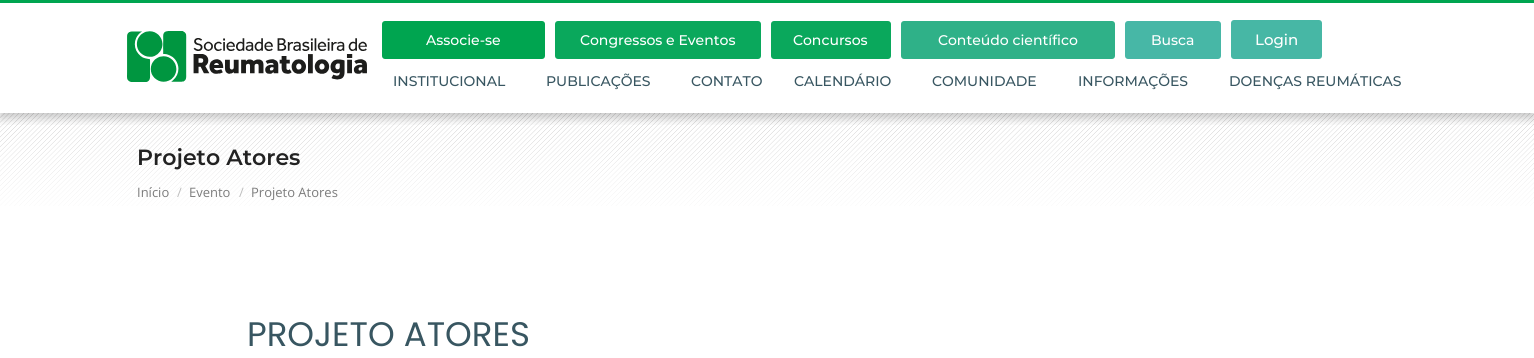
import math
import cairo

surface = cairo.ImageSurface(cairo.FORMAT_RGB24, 1534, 358)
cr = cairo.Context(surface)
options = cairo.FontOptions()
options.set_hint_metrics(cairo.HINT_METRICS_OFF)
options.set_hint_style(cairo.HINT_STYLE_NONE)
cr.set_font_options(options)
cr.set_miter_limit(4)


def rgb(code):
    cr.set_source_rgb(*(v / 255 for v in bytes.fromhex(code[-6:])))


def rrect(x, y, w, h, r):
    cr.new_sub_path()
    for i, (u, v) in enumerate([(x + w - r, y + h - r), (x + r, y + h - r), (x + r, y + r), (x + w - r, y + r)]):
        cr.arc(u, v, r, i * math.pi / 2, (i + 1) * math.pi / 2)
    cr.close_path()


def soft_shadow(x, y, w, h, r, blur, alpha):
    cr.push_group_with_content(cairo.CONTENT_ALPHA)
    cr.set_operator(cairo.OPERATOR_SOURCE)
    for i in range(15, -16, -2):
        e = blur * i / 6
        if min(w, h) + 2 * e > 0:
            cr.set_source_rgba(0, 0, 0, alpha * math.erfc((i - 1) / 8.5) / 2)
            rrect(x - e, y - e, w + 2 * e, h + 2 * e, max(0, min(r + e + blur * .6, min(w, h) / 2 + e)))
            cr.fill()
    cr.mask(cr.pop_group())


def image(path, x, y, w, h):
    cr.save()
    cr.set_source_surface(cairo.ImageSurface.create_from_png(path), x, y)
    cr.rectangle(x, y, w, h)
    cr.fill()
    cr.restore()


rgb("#ffffff")
cr.paint()
image("img/2.png", 0, 113, 1534, 93)
cr.save()
cr.rectangle(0, 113, 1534, 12)
cr.clip()
rgb("#000000")
soft_shadow(0, 5, 1534, 113, 0, 5, 0.22)
cr.restore()
rgb("#00a550")
cr.rectangle(0, 0, 1534, 3)
cr.fill()
image("img/1.png", 127, 31, 240, 51)
rrect(382, 21, 163, 38, 3)
cr.fill()
rgb("#0aa85c")
rrect(555, 21, 206, 38, 3)
cr.fill()
rrect(771, 21, 120, 38, 3)
cr.fill()
rgb("#2fb188")
rrect(901, 21, 214, 38, 3)
cr.fill()
rgb("#47b7a6")
rrect(1125, 21, 96, 38, 3)
cr.fill()
rgb("#47b7a5")
rrect(1231, 20, 91, 39, 3)
cr.fill()
cr.select_font_face("Montserrat Medium")
cr.set_font_size(14)
rgb("#ffffff")
for x, y, s in [
    (426, 45, "Associe-se"),
    (580, 45, "Congressos e Eventos"),
    (793, 45, "Concursos"),
    (938, 45, "Conteúdo científico"),
    (1151, 45, "Busca"),
]:
    cr.move_to(x, y)
    cr.show_text(s)
cr.set_font_size(15)
cr.move_to(1255, 45)
cr.show_text("Login")
cr.set_font_size(14)
rgb("#385661")
for x, y, s in [
    (393, 86, "INSTITUCIONAL"),
    (546, 86, "PUBLICAÇÕES"),
    (691, 86, "CONTATO"),
    (794, 86, "CALENDÁRIO"),
    (932, 86, "COMUNIDADE"),
    (1078, 86, "INFORMAÇÕES"),
    (1229, 86, "DOENÇAS REUMÁTICAS"),
]:
    cr.move_to(x, y)
    cr.show_text(s)
cr.select_font_face("Montserrat SemiBold")
cr.set_font_size(22)
rgb("#222222")
cr.move_to(137, 165)
cr.show_text("Projeto Atores")
cr.select_font_face("Open Sans")
cr.set_font_size(13)
rgb("#7c7c7c")
cr.move_to(137, 197)
cr.show_text("Início")
rgb("#bdbdbd")
cr.move_to(177, 197)
cr.show_text("/")
rgb("#7c7c7c")
cr.move_to(189, 197)
cr.show_text("Evento")
rgb("#bdbdbd")
cr.move_to(239, 197)
cr.show_text("/")
rgb("#7c7c7c")
cr.move_to(251, 197)
cr.show_text("Projeto Atores")
cr.select_font_face("Poppins")
cr.set_font_size(34)
rgb("#385661")
cr.move_to(247, 346)
cr.show_text("PROJETO ATORES")
surface.write_to_png("page.png")
